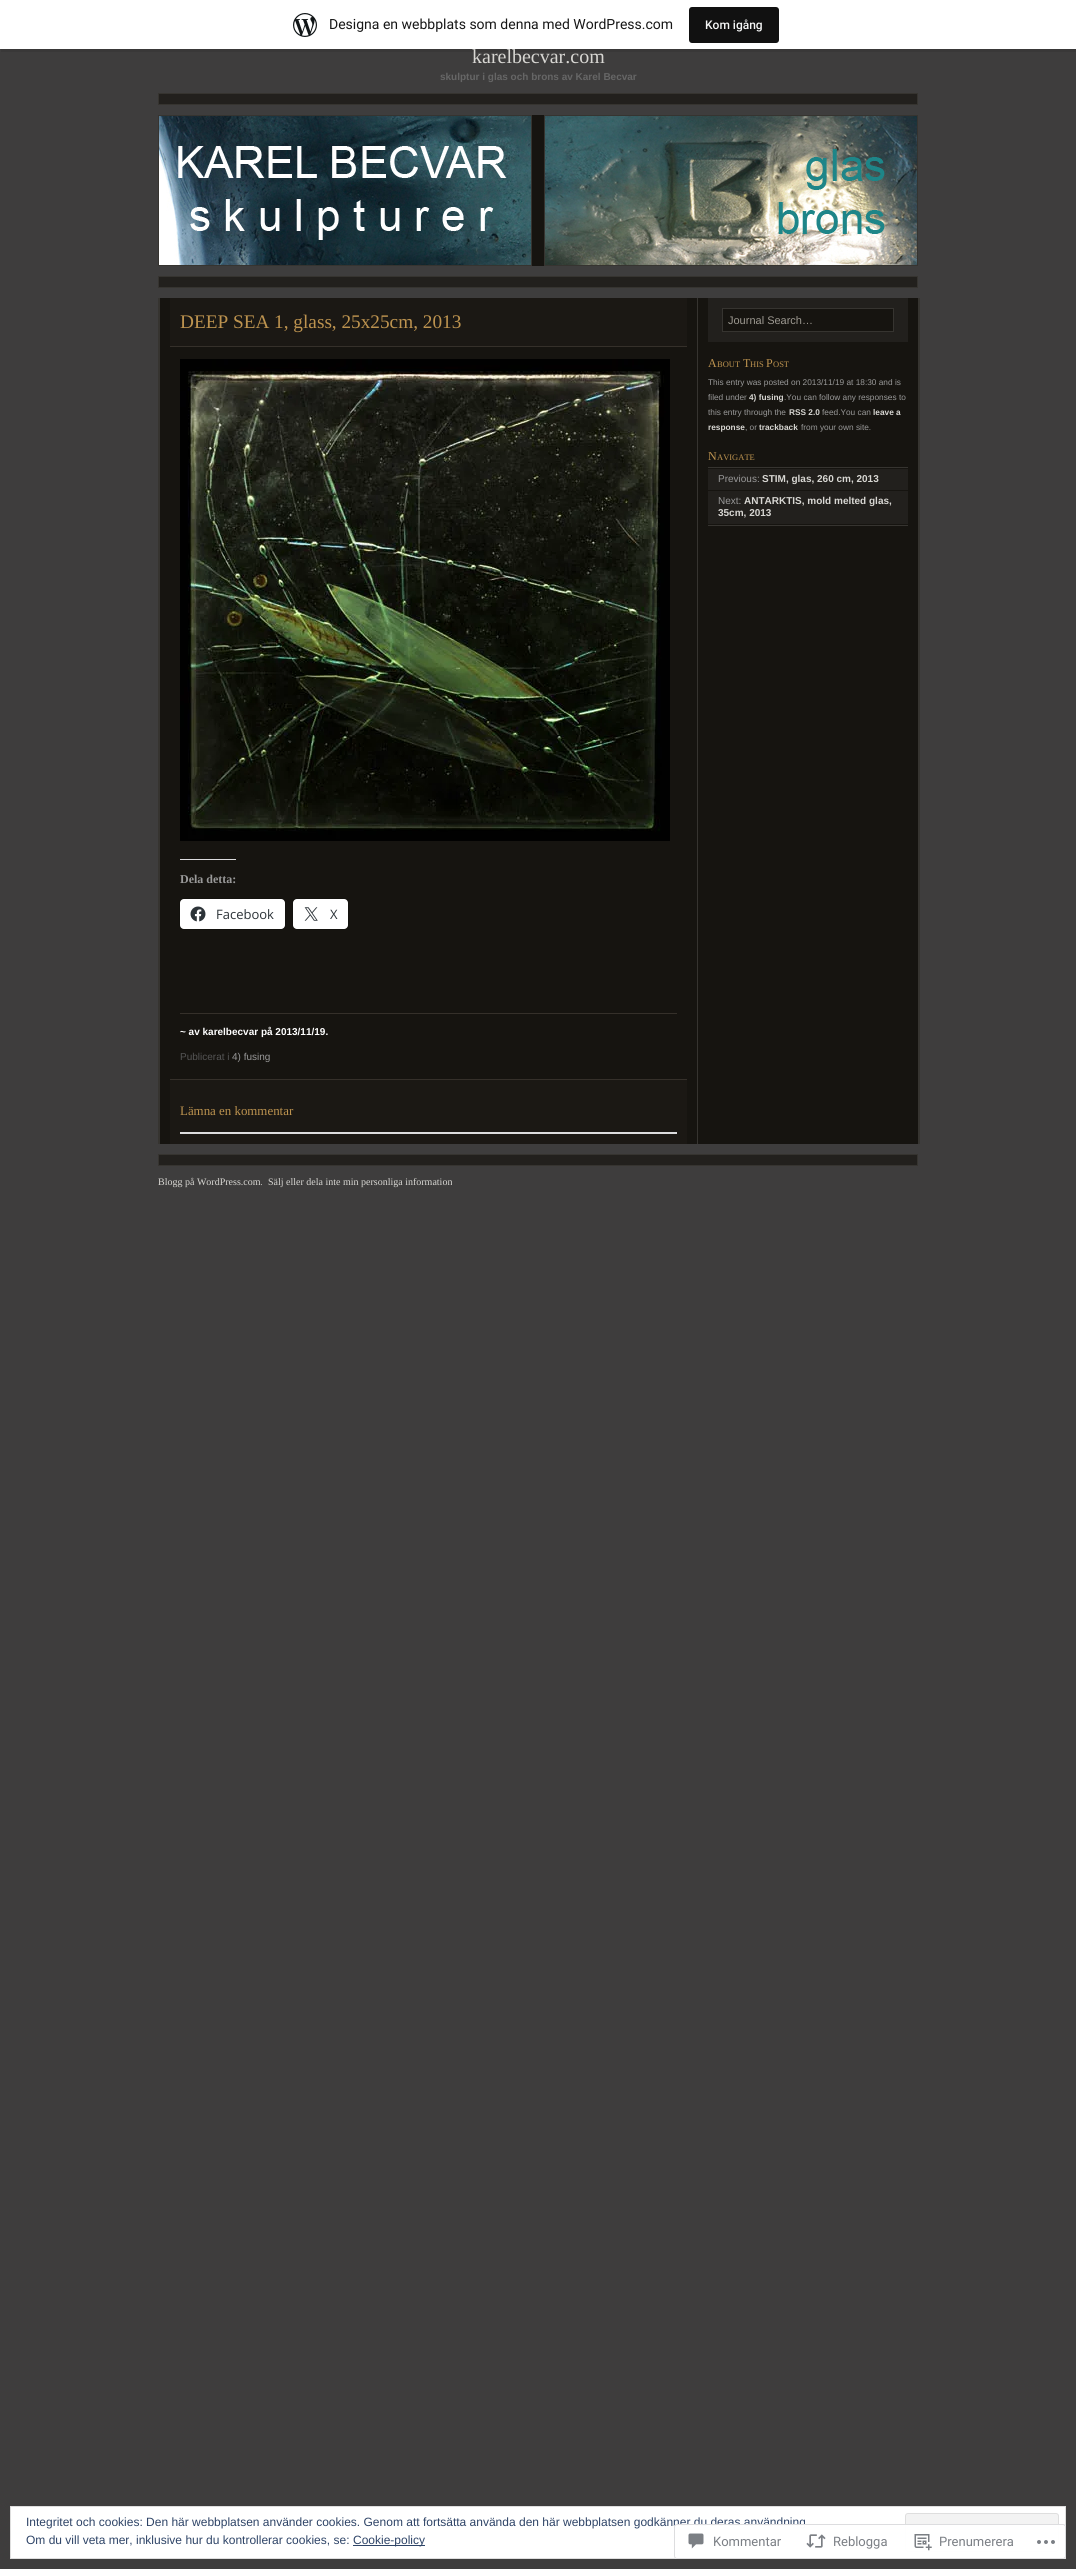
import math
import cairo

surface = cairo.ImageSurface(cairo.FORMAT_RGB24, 1076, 2569)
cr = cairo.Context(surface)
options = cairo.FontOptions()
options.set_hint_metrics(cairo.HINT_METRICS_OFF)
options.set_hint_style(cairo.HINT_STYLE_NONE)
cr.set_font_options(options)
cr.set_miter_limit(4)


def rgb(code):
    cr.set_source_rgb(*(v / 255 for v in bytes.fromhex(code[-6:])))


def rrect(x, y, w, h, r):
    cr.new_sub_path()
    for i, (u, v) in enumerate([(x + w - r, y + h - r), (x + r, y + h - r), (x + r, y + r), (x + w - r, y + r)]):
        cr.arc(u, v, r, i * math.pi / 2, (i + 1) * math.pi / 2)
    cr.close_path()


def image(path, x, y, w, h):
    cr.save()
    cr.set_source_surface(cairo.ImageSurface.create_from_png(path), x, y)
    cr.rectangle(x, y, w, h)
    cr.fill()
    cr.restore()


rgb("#3e3d3d")
cr.paint()
cr.set_source_rgba(0, 0, 0, 0.08)
cr.new_path()
cr.move_to(1, 49)
cr.line_to(1, 52)
cr.line_to(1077, 52)
cr.line_to(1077, 3)
cr.line_to(1076, 3)
cr.line_to(1076, 49)
cr.close_path()
cr.fill()
rgb("#ffffff")
cr.rectangle(0, 0, 1076, 49)
cr.fill()
image("img/1.png", 293, 13, 24, 24)
rgb("#111111")
rrect(689, 7, 90, 36, 3)
cr.fill()
rgb("#22201d")
cr.rectangle(158.5, 93.5, 759, 11)
cr.fill_preserve()
rgb("#363430")
cr.set_line_width(1)
cr.stroke()
image("img/3.png", 159, 116, 758, 149)
image("img/2.png", 158, 115, 760, 151)
rgb("#22201d")
cr.rectangle(158.5, 276.5, 759, 11)
cr.fill_preserve()
rgb("#363430")
cr.stroke()
image("img/4.png", 159, 298, 760, 846)
for x, y, w, h, color in [
    (919, 298, 1, 846, "#363430"),
    (158, 298, 1, 846, "#363430"),
    (170, 298, 517, 48, "#1b1814"),
    (170, 346, 517, 1, "#35302a"),
]:
    rgb(color)
    cr.rectangle(x, y, w, h)
    cr.fill()
image("img/5.png", 180, 359, 490, 482)
rgb("#dcdcde")
cr.rectangle(180, 859, 56, 1)
cr.fill()
rrect(179.5, 898.5, 106, 31, 4.5)
rgb("#13120e")
cr.stroke()
rgb("#ffffff")
rrect(180, 899, 105, 30, 4)
cr.fill()
image("img/6.png", 190, 906, 16, 16)
rrect(292.5, 898.5, 56, 31, 4.5)
rgb("#13120e")
cr.stroke()
rgb("#ffffff")
rrect(293, 899, 55, 30, 4)
cr.fill()
image("img/7.png", 304, 907, 14, 14)
for x, y, w, h, color in [
    (180, 1013, 497, 1, "#35302a"),
    (170, 1080, 517, 64, "#1b1814"),
    (170, 1079, 517, 1, "#35302a"),
    (180, 1132, 497, 2, "#dcdcde"),
    (708, 298, 200, 44, "#22201d"),
]:
    rgb(color)
    cr.rectangle(x, y, w, h)
    cr.fill()
rgb("#161410")
cr.rectangle(722.5, 308.5, 171, 23)
cr.fill_preserve()
rgb("#363430")
cr.stroke()
for x, y, w, h, color in [
    (708, 467, 200, 1, "#363430"),
    (708, 525, 200, 1, "#363430"),
    (708, 469, 200, 21, "#22201d"),
    (708, 491, 200, 33, "#22201d"),
]:
    rgb(color)
    cr.rectangle(x, y, w, h)
    cr.fill()
cr.rectangle(158.5, 1154.5, 759, 11)
cr.fill_preserve()
rgb("#363430")
cr.stroke()
rgb("#ffffff")
cr.rectangle(10.5, 2506.5, 1055, 52)
cr.fill_preserve()
rgb("#dedede")
cr.stroke()
rgb("#f3f3f3")
rrect(905.5, 2513.5, 153, 38, 2.5)
cr.fill_preserve()
rgb("#dedede")
cr.stroke()
rgb("#2e4467")
cr.rectangle(353, 2545, 72, 1)
cr.fill()
cr.select_font_face("Roboto")
cr.set_font_size(14)
rgb("#171717")
cr.move_to(329, 29)
cr.show_text("Designa en webbplats som denna med WordPress.com")
cr.select_font_face("Roboto Medium")
cr.set_font_size(12)
rgb("#f6f7f7")
cr.move_to(705, 29)
cr.show_text("Kom igång")
cr.select_font_face("Liberation Serif")
cr.set_font_size(20)
rgb("#d8d7d3")
cr.move_to(472, 63)
cr.show_text("karelbecvar.com")
cr.select_font_face("Liberation Sans", cairo.FONT_SLANT_NORMAL, cairo.FONT_WEIGHT_BOLD)
cr.set_font_size(10)
rgb("#666666")
cr.move_to(440, 80)
cr.show_text("skulptur i glas och brons av Karel Becvar")
cr.select_font_face("Liberation Serif")
cr.set_font_size(19.25)
rgb("#bd934f")
cr.move_to(180, 328)
cr.show_text("DEEP SEA 1, glass, 25x25cm, 2013")
cr.select_font_face("Liberation Serif", cairo.FONT_SLANT_NORMAL, cairo.FONT_WEIGHT_BOLD)
cr.set_font_size(12)
rgb("#999999")
cr.move_to(180, 883)
cr.show_text("Dela detta:")
cr.select_font_face("Open Sans")
cr.set_font_size(13)
rgb("#2c3338")
cr.move_to(216, 919)
cr.show_text("Facebook")
cr.move_to(330, 919)
cr.show_text("X")
cr.select_font_face("Liberation Sans", cairo.FONT_SLANT_NORMAL, cairo.FONT_WEIGHT_BOLD)
cr.set_font_size(10)
rgb("#ffffff")
cr.move_to(180, 1035)
cr.show_text("~ av karelbecvar på 2013/11/19.")
cr.select_font_face("Liberation Sans")
rgb("#555555")
cr.move_to(180, 1060)
cr.show_text("Publicerat i")
rgb("#999999")
cr.move_to(232, 1060)
cr.show_text("4) fusing")
cr.select_font_face("Liberation Serif")
cr.set_font_size(12.9)
rgb("#bd934f")
cr.move_to(180, 1115)
cr.show_text("Lämna en kommentar")
cr.select_font_face("Liberation Sans")
cr.set_font_size(11)
rgb("#9c9890")
cr.move_to(728, 324)
cr.show_text("Journal Search…")
cr.select_font_face("Liberation Serif")
cr.set_font_size(12)
rgb("#bd934f")
cr.move_to(708, 367)
cr.show_text("A")
cr.set_font_size(8.5)
cr.move_to(717, 367)
cr.show_text("BOUT")
cr.set_font_size(12)
cr.move_to(743, 367)
cr.show_text("T")
cr.set_font_size(8.5)
cr.move_to(750, 367)
cr.show_text("HIS")
cr.set_font_size(12)
cr.move_to(766, 367)
cr.show_text("P")
cr.set_font_size(8.5)
cr.move_to(773, 367)
cr.show_text("OST")
cr.select_font_face("Liberation Sans")
cr.set_font_size(8.3)
rgb("#999999")
cr.move_to(708, 385)
cr.show_text("This entry was posted on 2013/11/19 at 18:30 and is")
cr.move_to(708, 400)
cr.show_text("filed under")
cr.select_font_face("Liberation Sans", cairo.FONT_SLANT_NORMAL, cairo.FONT_WEIGHT_BOLD)
rgb("#d8d7d3")
cr.move_to(749, 400)
cr.show_text("4) fusing")
cr.select_font_face("Liberation Sans")
rgb("#999999")
cr.move_to(784, 400)
cr.show_text(".You can follow any responses to")
cr.move_to(708, 415)
cr.show_text("this entry through the")
cr.select_font_face("Liberation Sans", cairo.FONT_SLANT_NORMAL, cairo.FONT_WEIGHT_BOLD)
rgb("#d8d7d3")
cr.move_to(789, 415)
cr.show_text("RSS 2.0")
cr.select_font_face("Liberation Sans")
rgb("#999999")
cr.move_to(822, 415)
cr.show_text("feed.You can")
cr.select_font_face("Liberation Sans", cairo.FONT_SLANT_NORMAL, cairo.FONT_WEIGHT_BOLD)
rgb("#d8d7d3")
cr.move_to(873, 415)
cr.show_text("leave a")
cr.move_to(708, 430)
cr.show_text("response")
cr.select_font_face("Liberation Sans")
rgb("#999999")
cr.move_to(745, 430)
cr.show_text(", or")
cr.select_font_face("Liberation Sans", cairo.FONT_SLANT_NORMAL, cairo.FONT_WEIGHT_BOLD)
rgb("#d8d7d3")
cr.move_to(759, 430)
cr.show_text("trackback")
cr.select_font_face("Liberation Sans")
rgb("#999999")
cr.move_to(801, 430)
cr.show_text("from your own site.")
cr.select_font_face("Liberation Serif")
cr.set_font_size(12)
rgb("#bd934f")
cr.move_to(708, 460)
cr.show_text("N")
cr.set_font_size(8.5)
cr.move_to(717, 460)
cr.show_text("AVIGATE")
cr.select_font_face("Liberation Sans")
cr.set_font_size(10)
rgb("#999999")
cr.move_to(718, 482)
cr.show_text("Previous:")
cr.select_font_face("Liberation Sans", cairo.FONT_SLANT_NORMAL, cairo.FONT_WEIGHT_BOLD)
rgb("#d8d7d3")
cr.move_to(762, 482)
cr.show_text("STIM, glas, 260 cm, 2013")
cr.select_font_face("Liberation Sans")
rgb("#999999")
cr.move_to(718, 504)
cr.show_text("Next:")
cr.select_font_face("Liberation Sans", cairo.FONT_SLANT_NORMAL, cairo.FONT_WEIGHT_BOLD)
rgb("#d8d7d3")
cr.move_to(744, 504)
cr.show_text("ANTARKTIS, mold melted glas,")
cr.move_to(718, 516)
cr.show_text("35cm, 2013")
cr.select_font_face("Liberation Serif")
cr.move_to(158, 1185)
cr.show_text("Blogg på WordPress.com.")
cr.move_to(268, 1185)
cr.show_text("Sälj eller dela inte min personliga information")
cr.select_font_face("Liberation Sans")
cr.set_font_size(12)
rgb("#2e4467")
for x, y, s in [
    (26, 2526, "Integritet och cookies: Den här webbplatsen använder cookies. Genom att fortsätta använda den här webbplatsen godkänner du deras användning"),
    (26, 2544, "Om du vill veta mer, inklusive hur du kontrollerar cookies, se:"),
    (353, 2544, "Cookie-policy"),
]:
    cr.move_to(x, y)
    cr.show_text(s)
cr.set_source_rgba(1, 1, 1, 0.98)
rrect(674, 2524, 392, 35, 3)
cr.fill()
rrect(674.5, 2524.5, 391, 34, 2.5)
cr.set_source_rgba(0.863, 0.863, 0.871, 0.98)
cr.stroke()
image("img/8.png", 688, 2533, 16, 16)
cr.select_font_face("Roboto")
cr.set_font_size(13)
rgb("#7b7f85")
cr.move_to(713, 2546)
cr.show_text("Kommentar")
image("img/9.png", 806, 2534, 20, 14)
cr.move_to(833, 2546)
cr.show_text("Reblogga")
image("img/10.png", 914, 2534, 18, 17)
cr.move_to(939, 2546)
cr.show_text("Prenumerera")
image("img/11.png", 1037, 2540, 18, 4)
surface.write_to_png("page.png")
